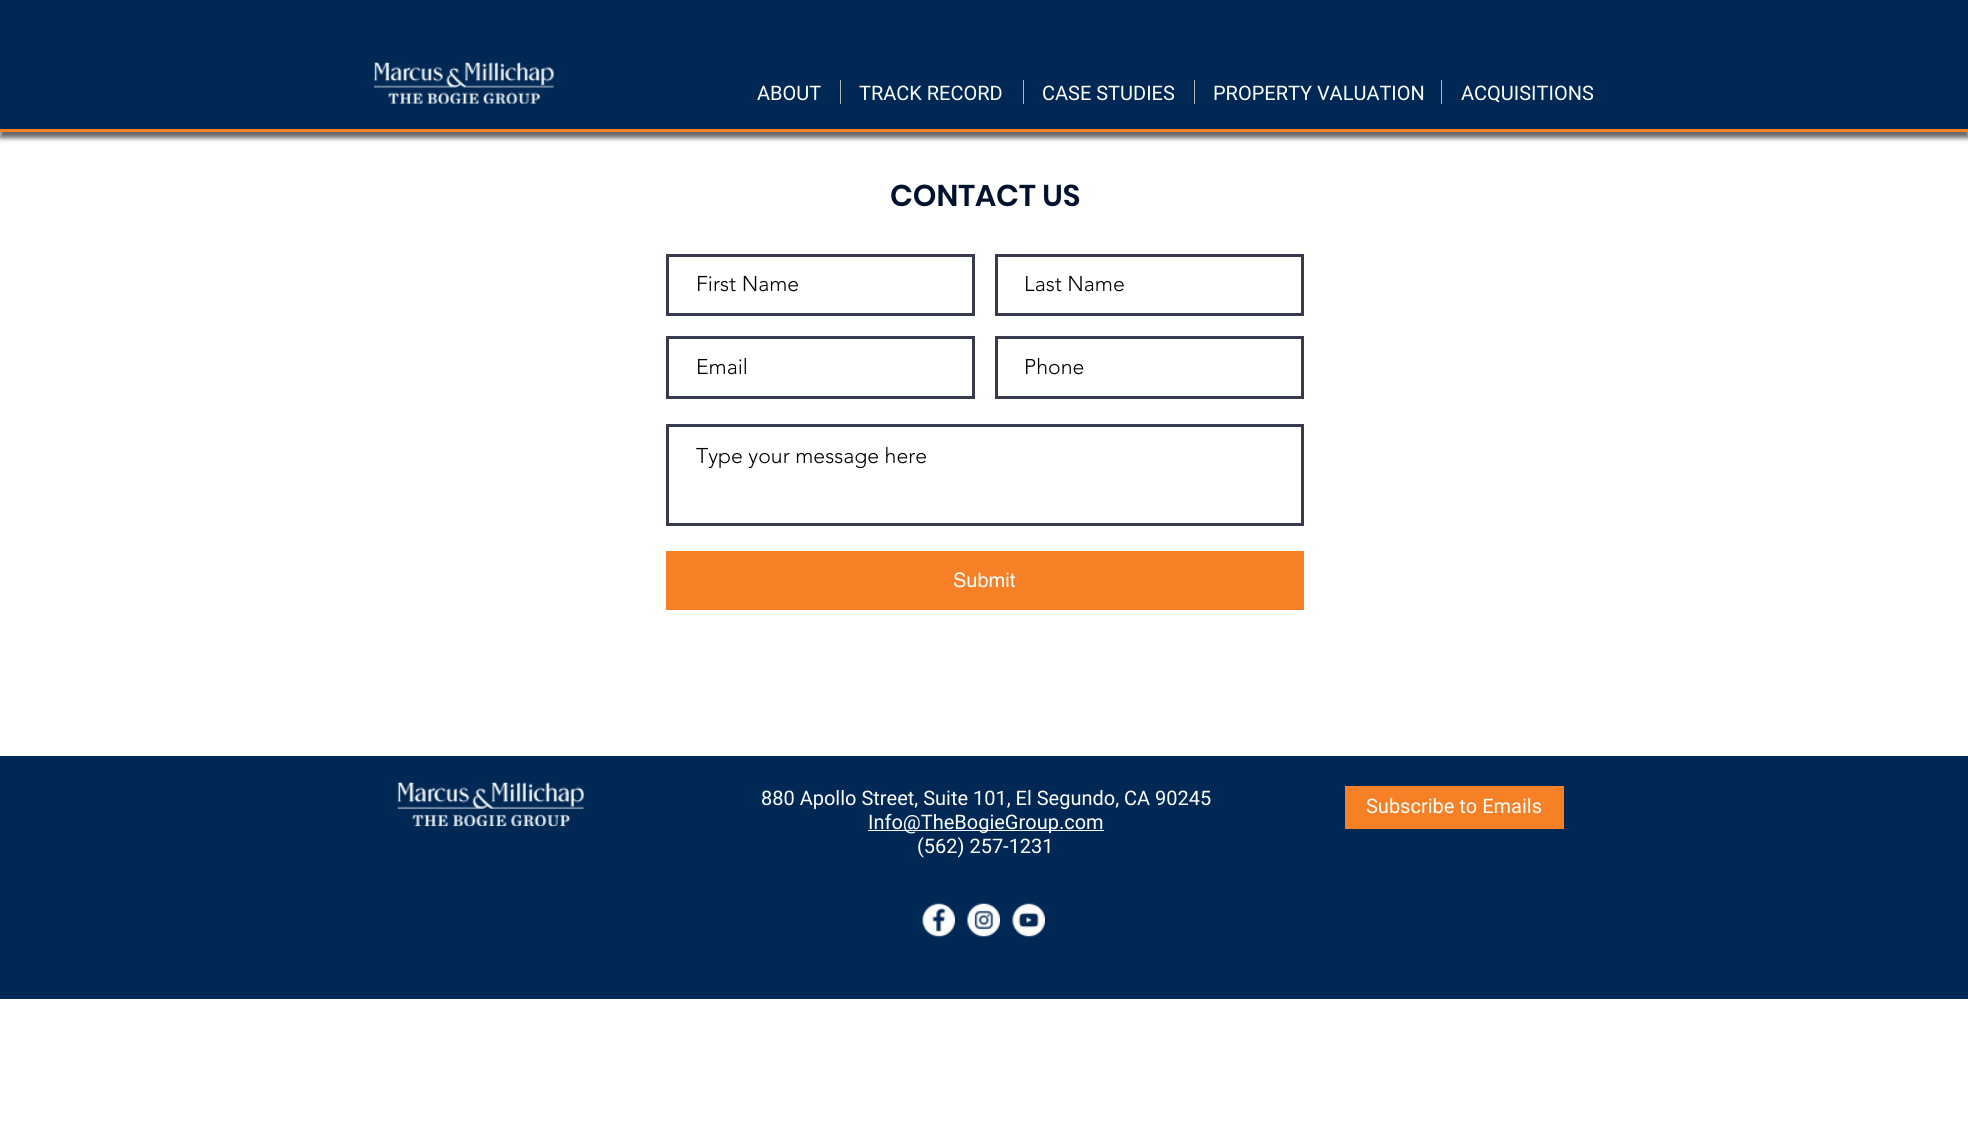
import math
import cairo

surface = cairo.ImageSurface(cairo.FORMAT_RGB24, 1968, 1133)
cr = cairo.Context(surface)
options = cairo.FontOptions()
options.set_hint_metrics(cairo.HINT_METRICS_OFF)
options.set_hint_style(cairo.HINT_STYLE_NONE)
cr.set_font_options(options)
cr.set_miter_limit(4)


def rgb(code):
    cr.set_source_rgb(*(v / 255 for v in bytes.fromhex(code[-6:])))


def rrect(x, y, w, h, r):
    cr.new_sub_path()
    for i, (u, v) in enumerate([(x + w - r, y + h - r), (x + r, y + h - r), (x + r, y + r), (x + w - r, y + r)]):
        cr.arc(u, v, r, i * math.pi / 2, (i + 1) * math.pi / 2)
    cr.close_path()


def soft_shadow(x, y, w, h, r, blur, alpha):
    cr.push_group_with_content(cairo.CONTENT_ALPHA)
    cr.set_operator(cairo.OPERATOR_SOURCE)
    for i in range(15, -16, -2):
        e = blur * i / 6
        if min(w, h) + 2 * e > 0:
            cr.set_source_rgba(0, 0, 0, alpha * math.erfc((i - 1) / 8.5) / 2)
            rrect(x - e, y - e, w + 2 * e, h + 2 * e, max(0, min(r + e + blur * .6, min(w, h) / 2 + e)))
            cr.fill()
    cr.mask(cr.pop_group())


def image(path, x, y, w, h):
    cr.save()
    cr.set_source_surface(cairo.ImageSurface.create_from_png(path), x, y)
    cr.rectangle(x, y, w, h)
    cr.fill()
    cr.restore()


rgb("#ffffff")
cr.paint()
rgb("#000000")
soft_shadow(0, 6, 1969, 132, 0, 2.5, 0.6)
rgb("#002855")
cr.rectangle(0, 0, 1968, 129)
cr.fill()
image("img/1.png", 373, 62, 181, 42)
for x, y, w, h, color in [
    (840, 80, 1, 24, "#b3b3b3"),
    (1023, 80, 1, 24, "#b3b3b3"),
    (1194, 80, 1, 24, "#b3b3b3"),
    (1441, 80, 1, 24, "#b3b3b3"),
    (0, 129, 1968, 3, "#f58025"),
]:
    rgb(color)
    cr.rectangle(x, y, w, h)
    cr.fill()
cr.rectangle(667.5, 255.5, 306, 59)
rgb("#373b4d")
cr.set_line_width(3)
cr.stroke()
cr.rectangle(996.5, 255.5, 306, 59)
cr.stroke()
cr.rectangle(667.5, 337.5, 306, 60)
cr.stroke()
cr.rectangle(996.5, 337.5, 306, 60)
cr.stroke()
cr.rectangle(667.5, 425.5, 635, 99)
cr.stroke()
rgb("#f58025")
cr.rectangle(666, 551, 638, 59)
cr.fill()
rgb("#002855")
cr.rectangle(0, 756, 1968, 243)
cr.fill()
image("img/2.png", 397, 782, 187, 45)
rgb("#ffffff")
cr.rectangle(868, 830, 236, 1)
cr.fill()
rgb("#f58025")
cr.rectangle(1345, 786, 219, 43)
cr.fill()
image("img/3.png", 922, 903, 33, 34)
image("img/4.png", 967, 903, 33, 34)
image("img/5.png", 1012, 903, 33, 34)
cr.select_font_face("Roboto")
cr.set_font_size(20)
rgb("#ffffff")
for x, y, s in [
    (757, 100, "ABOUT"),
    (859, 100, "TRACK RECORD"),
    (1042, 100, "CASE STUDIES"),
    (1213, 100, "PROPERTY VALUATION"),
    (1461, 100, "ACQUISITIONS"),
]:
    cr.move_to(x, y)
    cr.show_text(s)
cr.select_font_face("Poppins SemiBold")
cr.set_font_size(30)
rgb("#01122e")
cr.move_to(890, 206)
cr.show_text("CONTACT US")
cr.select_font_face("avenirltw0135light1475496 Light")
cr.set_font_size(21.25)
rgb("#000000")
for x, y, s in [
    (696, 291, "First Name"),
    (1024, 291, "Last Name"),
    (696, 374, "Email"),
    (1024, 374, "Phone"),
    (696, 463, "Type your message here"),
]:
    cr.move_to(x, y)
    cr.show_text(s)
cr.select_font_face("helvetica")
cr.set_font_size(20)
rgb("#ffffff")
cr.move_to(953, 587)
cr.show_text("Submit")
cr.select_font_face("Roboto")
for x, y, s in [
    (761, 805, "880 Apollo Street, Suite 101, El Segundo, CA 90245"),
    (868, 829, "Info@TheBogieGroup.com"),
    (917, 853, "(562) 257-1231"),
    (1366, 813, "Subscribe to Emails"),
]:
    cr.move_to(x, y)
    cr.show_text(s)
surface.write_to_png("page.png")
